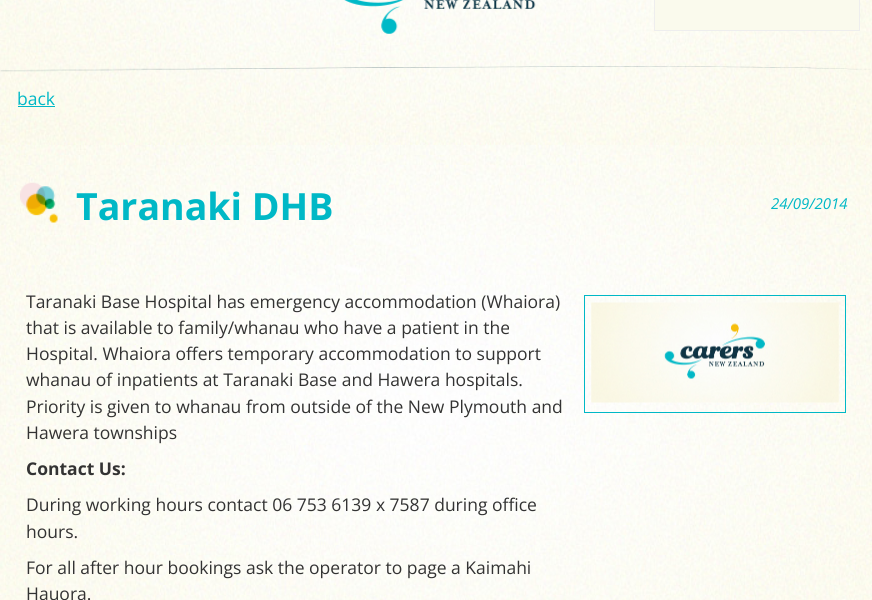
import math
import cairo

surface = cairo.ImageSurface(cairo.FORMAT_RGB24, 872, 600)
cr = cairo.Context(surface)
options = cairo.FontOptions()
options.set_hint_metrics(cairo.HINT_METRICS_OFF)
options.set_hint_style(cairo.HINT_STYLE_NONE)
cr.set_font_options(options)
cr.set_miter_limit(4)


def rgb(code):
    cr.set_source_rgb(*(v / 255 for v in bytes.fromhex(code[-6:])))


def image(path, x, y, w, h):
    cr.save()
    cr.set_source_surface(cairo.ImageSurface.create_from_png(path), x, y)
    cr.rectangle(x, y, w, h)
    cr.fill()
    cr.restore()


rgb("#ffffff")
cr.paint()
image("img/1.png", 0, 0, 872, 600)
image("img/2.png", 0, 66, 871, 6)
image("img/3.png", 344, 0, 192, 34)
rgb("#fafaed")
cr.rectangle(654.5, -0.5, 205, 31)
cr.fill_preserve()
rgb("#eeeeee")
cr.set_line_width(1)
cr.stroke()
rgb("#00b8c6")
cr.rectangle(18, 106, 37, 1)
cr.fill()
image("img/4.png", 20, 182, 38, 41)
cr.rectangle(584.5, 295.5, 261, 117)
cr.stroke()
image("img/5.png", 591, 302, 248, 101)
cr.select_font_face("Open Sans")
cr.set_font_size(17.5)
cr.move_to(17, 105)
cr.show_text("back")
cr.select_font_face("Open Sans", cairo.FONT_SLANT_NORMAL, cairo.FONT_WEIGHT_BOLD)
cr.set_font_size(37.5)
cr.move_to(76, 220)
cr.show_text("Taranaki DHB")
cr.select_font_face("Open Sans", cairo.FONT_SLANT_ITALIC)
cr.set_font_size(15)
cr.move_to(771, 209)
cr.show_text("24/09/2014")
cr.select_font_face("Open Sans")
cr.set_font_size(17.5)
rgb("#333333")
for x, y, s in [
    (26, 308, "Taranaki Base Hospital has emergency accommodation (Whaiora)"),
    (26, 334, "that is available to family/whanau who have a patient in the"),
    (26, 360, "Hospital. Whaiora offers temporary accommodation to support"),
    (26, 386, "whanau of inpatients at Taranaki Base and Hawera hospitals."),
    (26, 413, "Priority is given to whanau from outside of the New Plymouth and"),
    (26, 439, "Hawera townships"),
]:
    cr.move_to(x, y)
    cr.show_text(s)
cr.select_font_face("Open Sans", cairo.FONT_SLANT_NORMAL, cairo.FONT_WEIGHT_BOLD)
cr.move_to(26, 475)
cr.show_text("Contact Us:")
cr.select_font_face("Open Sans")
for x, y, s in [
    (26, 511, "During working hours contact 06 753 6139 x 7587 during office"),
    (26, 538, "hours."),
    (26, 574, "For all after hour bookings ask the operator to page a Kaimahi"),
    (26, 600, "Hauora."),
]:
    cr.move_to(x, y)
    cr.show_text(s)
surface.write_to_png("page.png")
